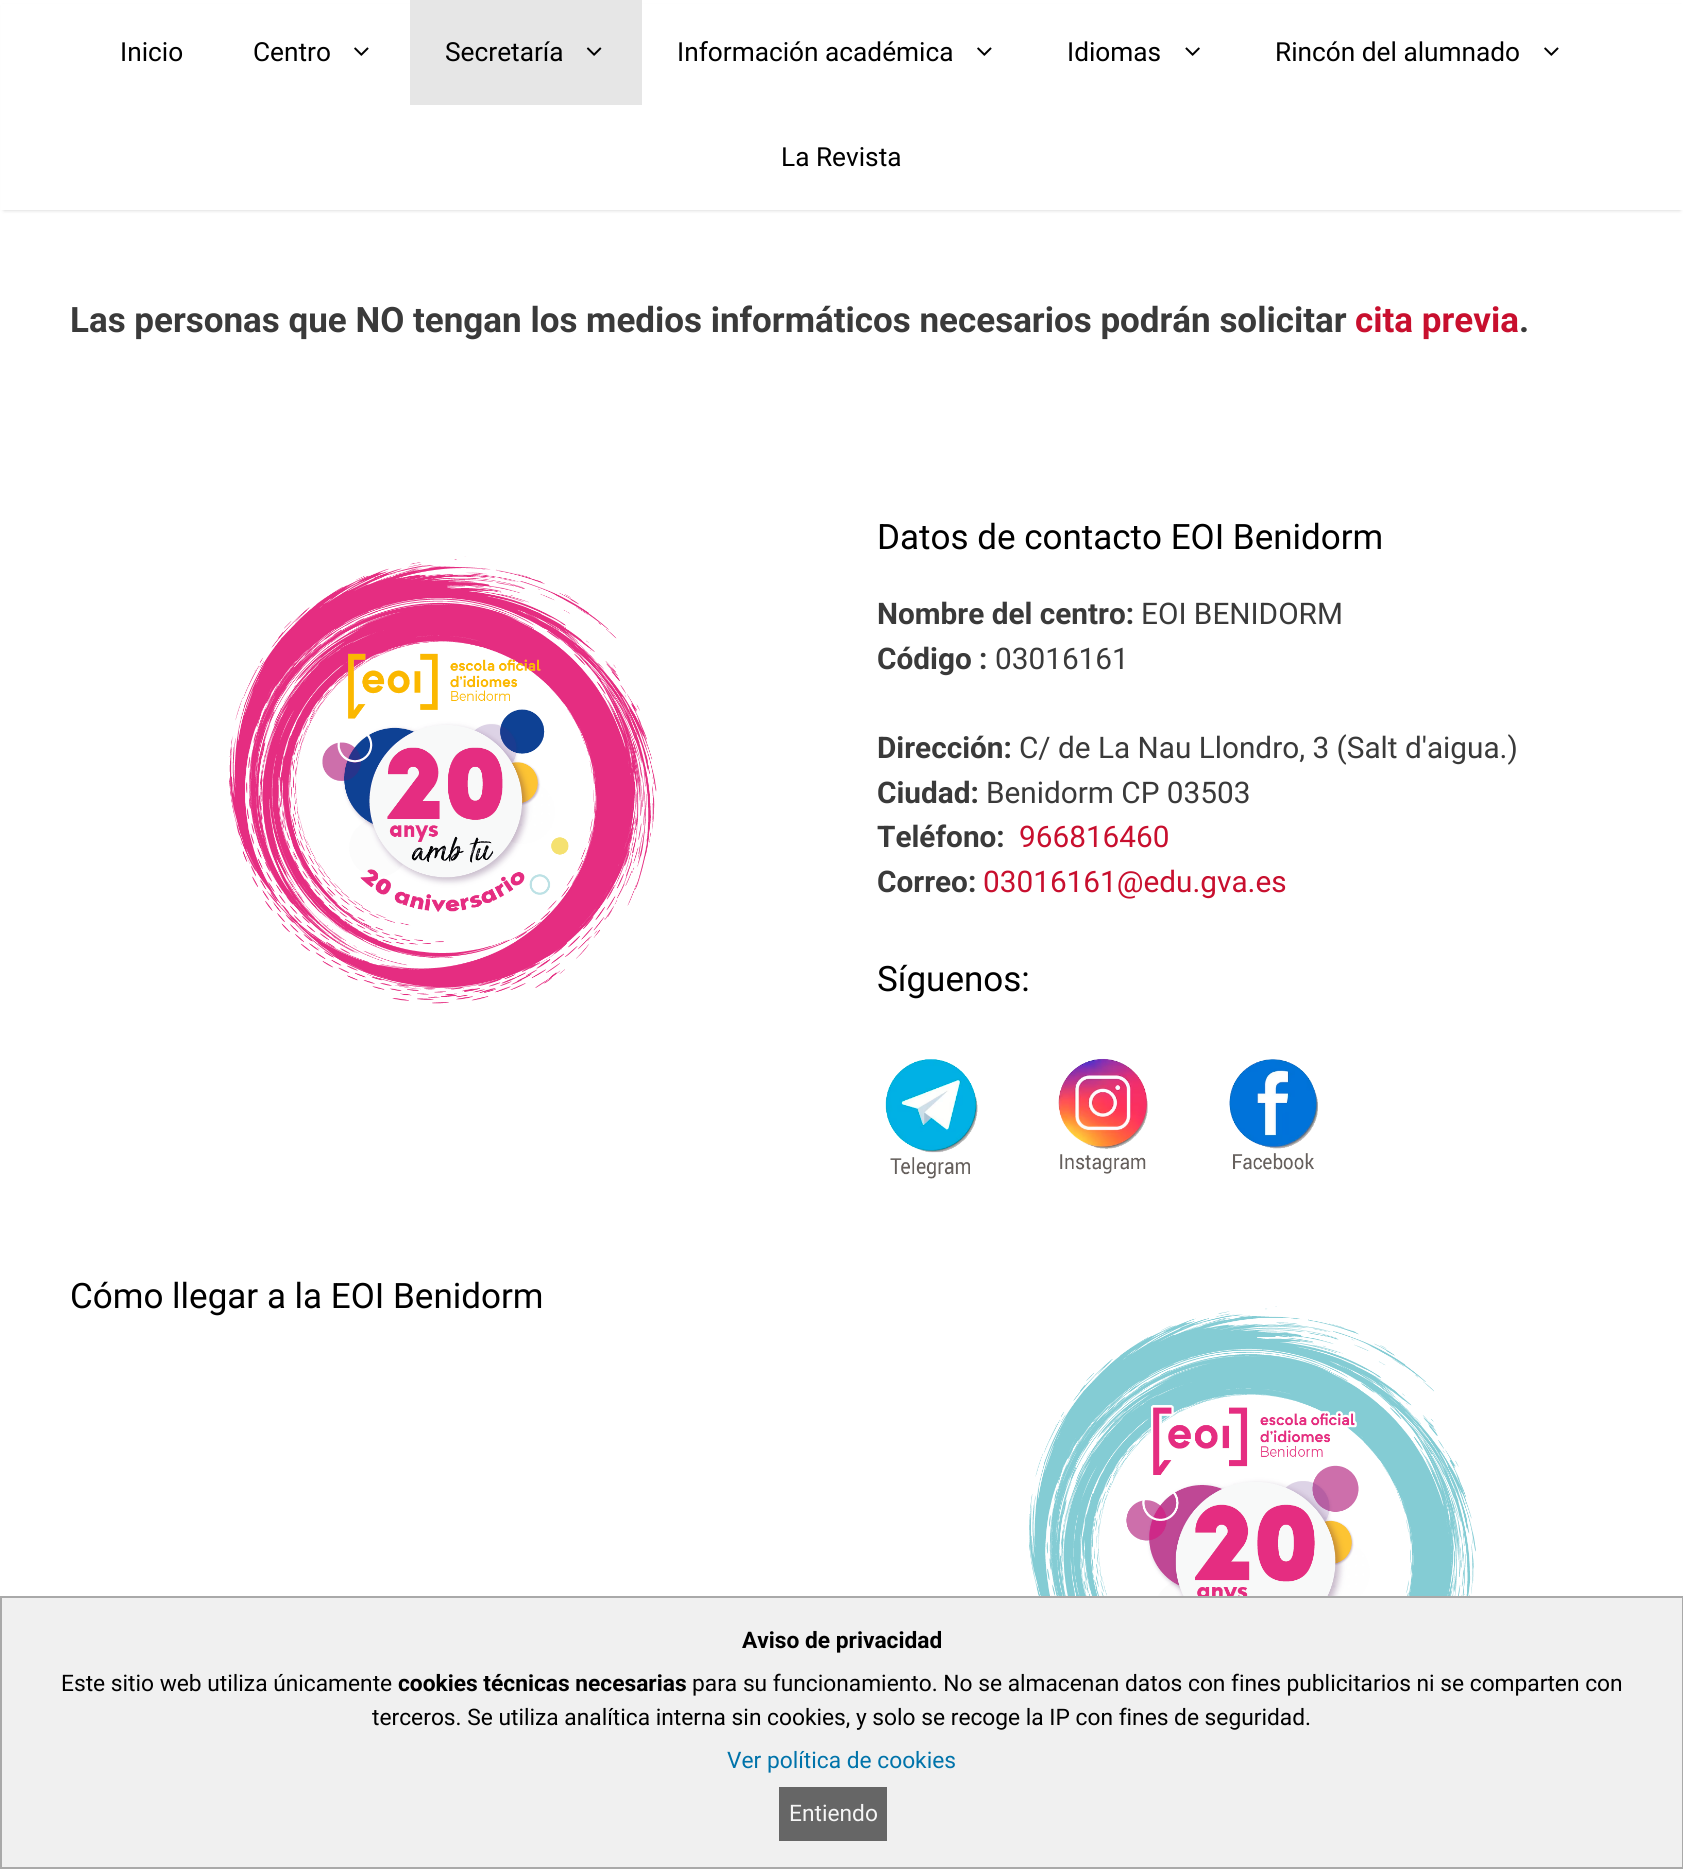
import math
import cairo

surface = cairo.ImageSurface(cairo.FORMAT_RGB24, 1683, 1869)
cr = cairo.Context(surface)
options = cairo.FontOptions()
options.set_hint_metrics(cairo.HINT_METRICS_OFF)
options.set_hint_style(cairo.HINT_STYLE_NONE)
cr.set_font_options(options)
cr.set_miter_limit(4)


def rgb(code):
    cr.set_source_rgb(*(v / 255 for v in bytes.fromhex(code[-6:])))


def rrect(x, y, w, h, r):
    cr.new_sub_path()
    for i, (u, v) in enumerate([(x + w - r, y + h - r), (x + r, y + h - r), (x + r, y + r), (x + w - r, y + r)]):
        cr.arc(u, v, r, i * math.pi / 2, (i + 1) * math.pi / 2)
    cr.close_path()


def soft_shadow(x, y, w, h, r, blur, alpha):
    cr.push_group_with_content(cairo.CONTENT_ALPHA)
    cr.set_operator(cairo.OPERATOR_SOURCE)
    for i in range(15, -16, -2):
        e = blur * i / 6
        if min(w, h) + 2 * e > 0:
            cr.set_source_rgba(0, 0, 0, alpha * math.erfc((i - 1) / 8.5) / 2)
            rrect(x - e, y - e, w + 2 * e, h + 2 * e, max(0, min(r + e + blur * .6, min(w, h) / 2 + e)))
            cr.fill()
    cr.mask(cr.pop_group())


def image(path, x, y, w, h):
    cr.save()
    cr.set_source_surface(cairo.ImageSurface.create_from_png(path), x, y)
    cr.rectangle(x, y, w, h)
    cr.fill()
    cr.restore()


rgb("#ffffff")
cr.paint()
rgb("#000000")
soft_shadow(4, 7, 1676, 203, 0, 2, 0.2)
rgb("#ffffff")
cr.rectangle(1, 4, 1682, 206)
cr.fill()
image("img/1.png", 354, 47, 15, 9)
rgb("#e6e6e6")
cr.rectangle(410, 0, 232, 105)
cr.fill()
image("img/2.png", 586, 47, 16, 9)
image("img/1.png", 977, 47, 15, 9)
image("img/3.png", 1185, 47, 15, 9)
image("img/1.png", 1544, 47, 15, 9)
image("img/4.png", 229, 556, 428, 448)
image("img/5.png", 885, 1059, 93, 120)
image("img/6.png", 1058, 1058, 90, 116)
image("img/7.png", 1229, 1059, 89, 111)
image("img/8.png", 1029, 1306, 447, 290)
rgb("#f0f0f0")
cr.rectangle(1, 1597, 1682, 271)
cr.fill_preserve()
rgb("#a9a9a9")
cr.stroke()
rgb("#666666")
cr.rectangle(779, 1787, 108, 54)
cr.fill()
cr.select_font_face("Roboto")
cr.set_font_size(26.25)
rgb("#000000")
for x, y, s in [
    (120, 61, "Inicio"),
    (253, 61, "Centro"),
    (445, 61, "Secretaría"),
    (677, 61, "Información académica"),
    (1067, 61, "Idiomas"),
    (1275, 61, "Rincón del alumnado"),
    (781, 166, "La Revista"),
]:
    cr.move_to(x, y)
    cr.show_text(s)
cr.select_font_face("Roboto", cairo.FONT_SLANT_NORMAL, cairo.FONT_WEIGHT_BOLD)
cr.set_font_size(35)
rgb("#3a3a3a")
cr.move_to(70, 332)
cr.show_text("Las personas que NO tengan los medios informáticos necesarios podrán solicitar")
rgb("#c80f2e")
cr.move_to(1355, 332)
cr.show_text("cita previa")
rgb("#3a3a3a")
cr.move_to(1519, 332)
cr.show_text(".")
cr.select_font_face("Roboto")
rgb("#000000")
cr.move_to(877, 549)
cr.show_text("Datos de contacto EOI Benidorm")
cr.select_font_face("Roboto", cairo.FONT_SLANT_NORMAL, cairo.FONT_WEIGHT_BOLD)
cr.set_font_size(29.75)
rgb("#3a3a3a")
cr.move_to(877, 624)
cr.show_text("Nombre del centro:")
cr.select_font_face("Roboto")
cr.move_to(1141, 624)
cr.show_text("EOI BENIDORM")
cr.select_font_face("Roboto", cairo.FONT_SLANT_NORMAL, cairo.FONT_WEIGHT_BOLD)
cr.move_to(877, 669)
cr.show_text("Código :")
cr.select_font_face("Roboto")
cr.move_to(995, 669)
cr.show_text("03016161")
cr.select_font_face("Roboto", cairo.FONT_SLANT_NORMAL, cairo.FONT_WEIGHT_BOLD)
cr.move_to(877, 758)
cr.show_text("Dirección:")
cr.select_font_face("Roboto")
cr.move_to(1019, 758)
cr.show_text("C/ de La Nau Llondro, 3 (Salt d'aigua.)")
cr.select_font_face("Roboto", cairo.FONT_SLANT_NORMAL, cairo.FONT_WEIGHT_BOLD)
cr.move_to(877, 803)
cr.show_text("Ciudad:")
cr.select_font_face("Roboto")
cr.move_to(986, 803)
cr.show_text("Benidorm CP 03503")
cr.select_font_face("Roboto", cairo.FONT_SLANT_NORMAL, cairo.FONT_WEIGHT_BOLD)
cr.move_to(877, 847)
cr.show_text("Teléfono:")
cr.select_font_face("Roboto")
rgb("#c80f2e")
cr.move_to(1019, 847)
cr.show_text("966816460")
cr.select_font_face("Roboto", cairo.FONT_SLANT_NORMAL, cairo.FONT_WEIGHT_BOLD)
rgb("#3a3a3a")
cr.move_to(877, 892)
cr.show_text("Correo:")
cr.select_font_face("Roboto")
rgb("#c80f2e")
cr.move_to(983, 892)
cr.show_text("03016161@edu.gva.es")
cr.set_font_size(35)
rgb("#000000")
cr.move_to(877, 991)
cr.show_text("Síguenos:")
cr.move_to(70, 1308)
cr.show_text("Cómo llegar a la EOI Benidorm")
cr.select_font_face("Roboto", cairo.FONT_SLANT_NORMAL, cairo.FONT_WEIGHT_BOLD)
cr.set_font_size(22.75)
cr.move_to(742, 1648)
cr.show_text("Aviso de privacidad")
cr.select_font_face("Roboto")
cr.move_to(61, 1691)
cr.show_text("Este sitio web utiliza únicamente")
cr.select_font_face("Roboto", cairo.FONT_SLANT_NORMAL, cairo.FONT_WEIGHT_BOLD)
cr.move_to(398, 1691)
cr.show_text("cookies técnicas necesarias")
cr.select_font_face("Roboto")
cr.move_to(692, 1691)
cr.show_text("para su funcionamiento. No se almacenan datos con fines publicitarios ni se comparten con")
cr.move_to(372, 1725)
cr.show_text("terceros. Se utiliza analítica interna sin cookies, y solo se recoge la IP con fines de seguridad.")
rgb("#0073aa")
cr.move_to(727, 1768)
cr.show_text("Ver política de cookies")
rgb("#f5f5f5")
cr.move_to(789, 1821)
cr.show_text("Entiendo")
surface.write_to_png("page.png")
